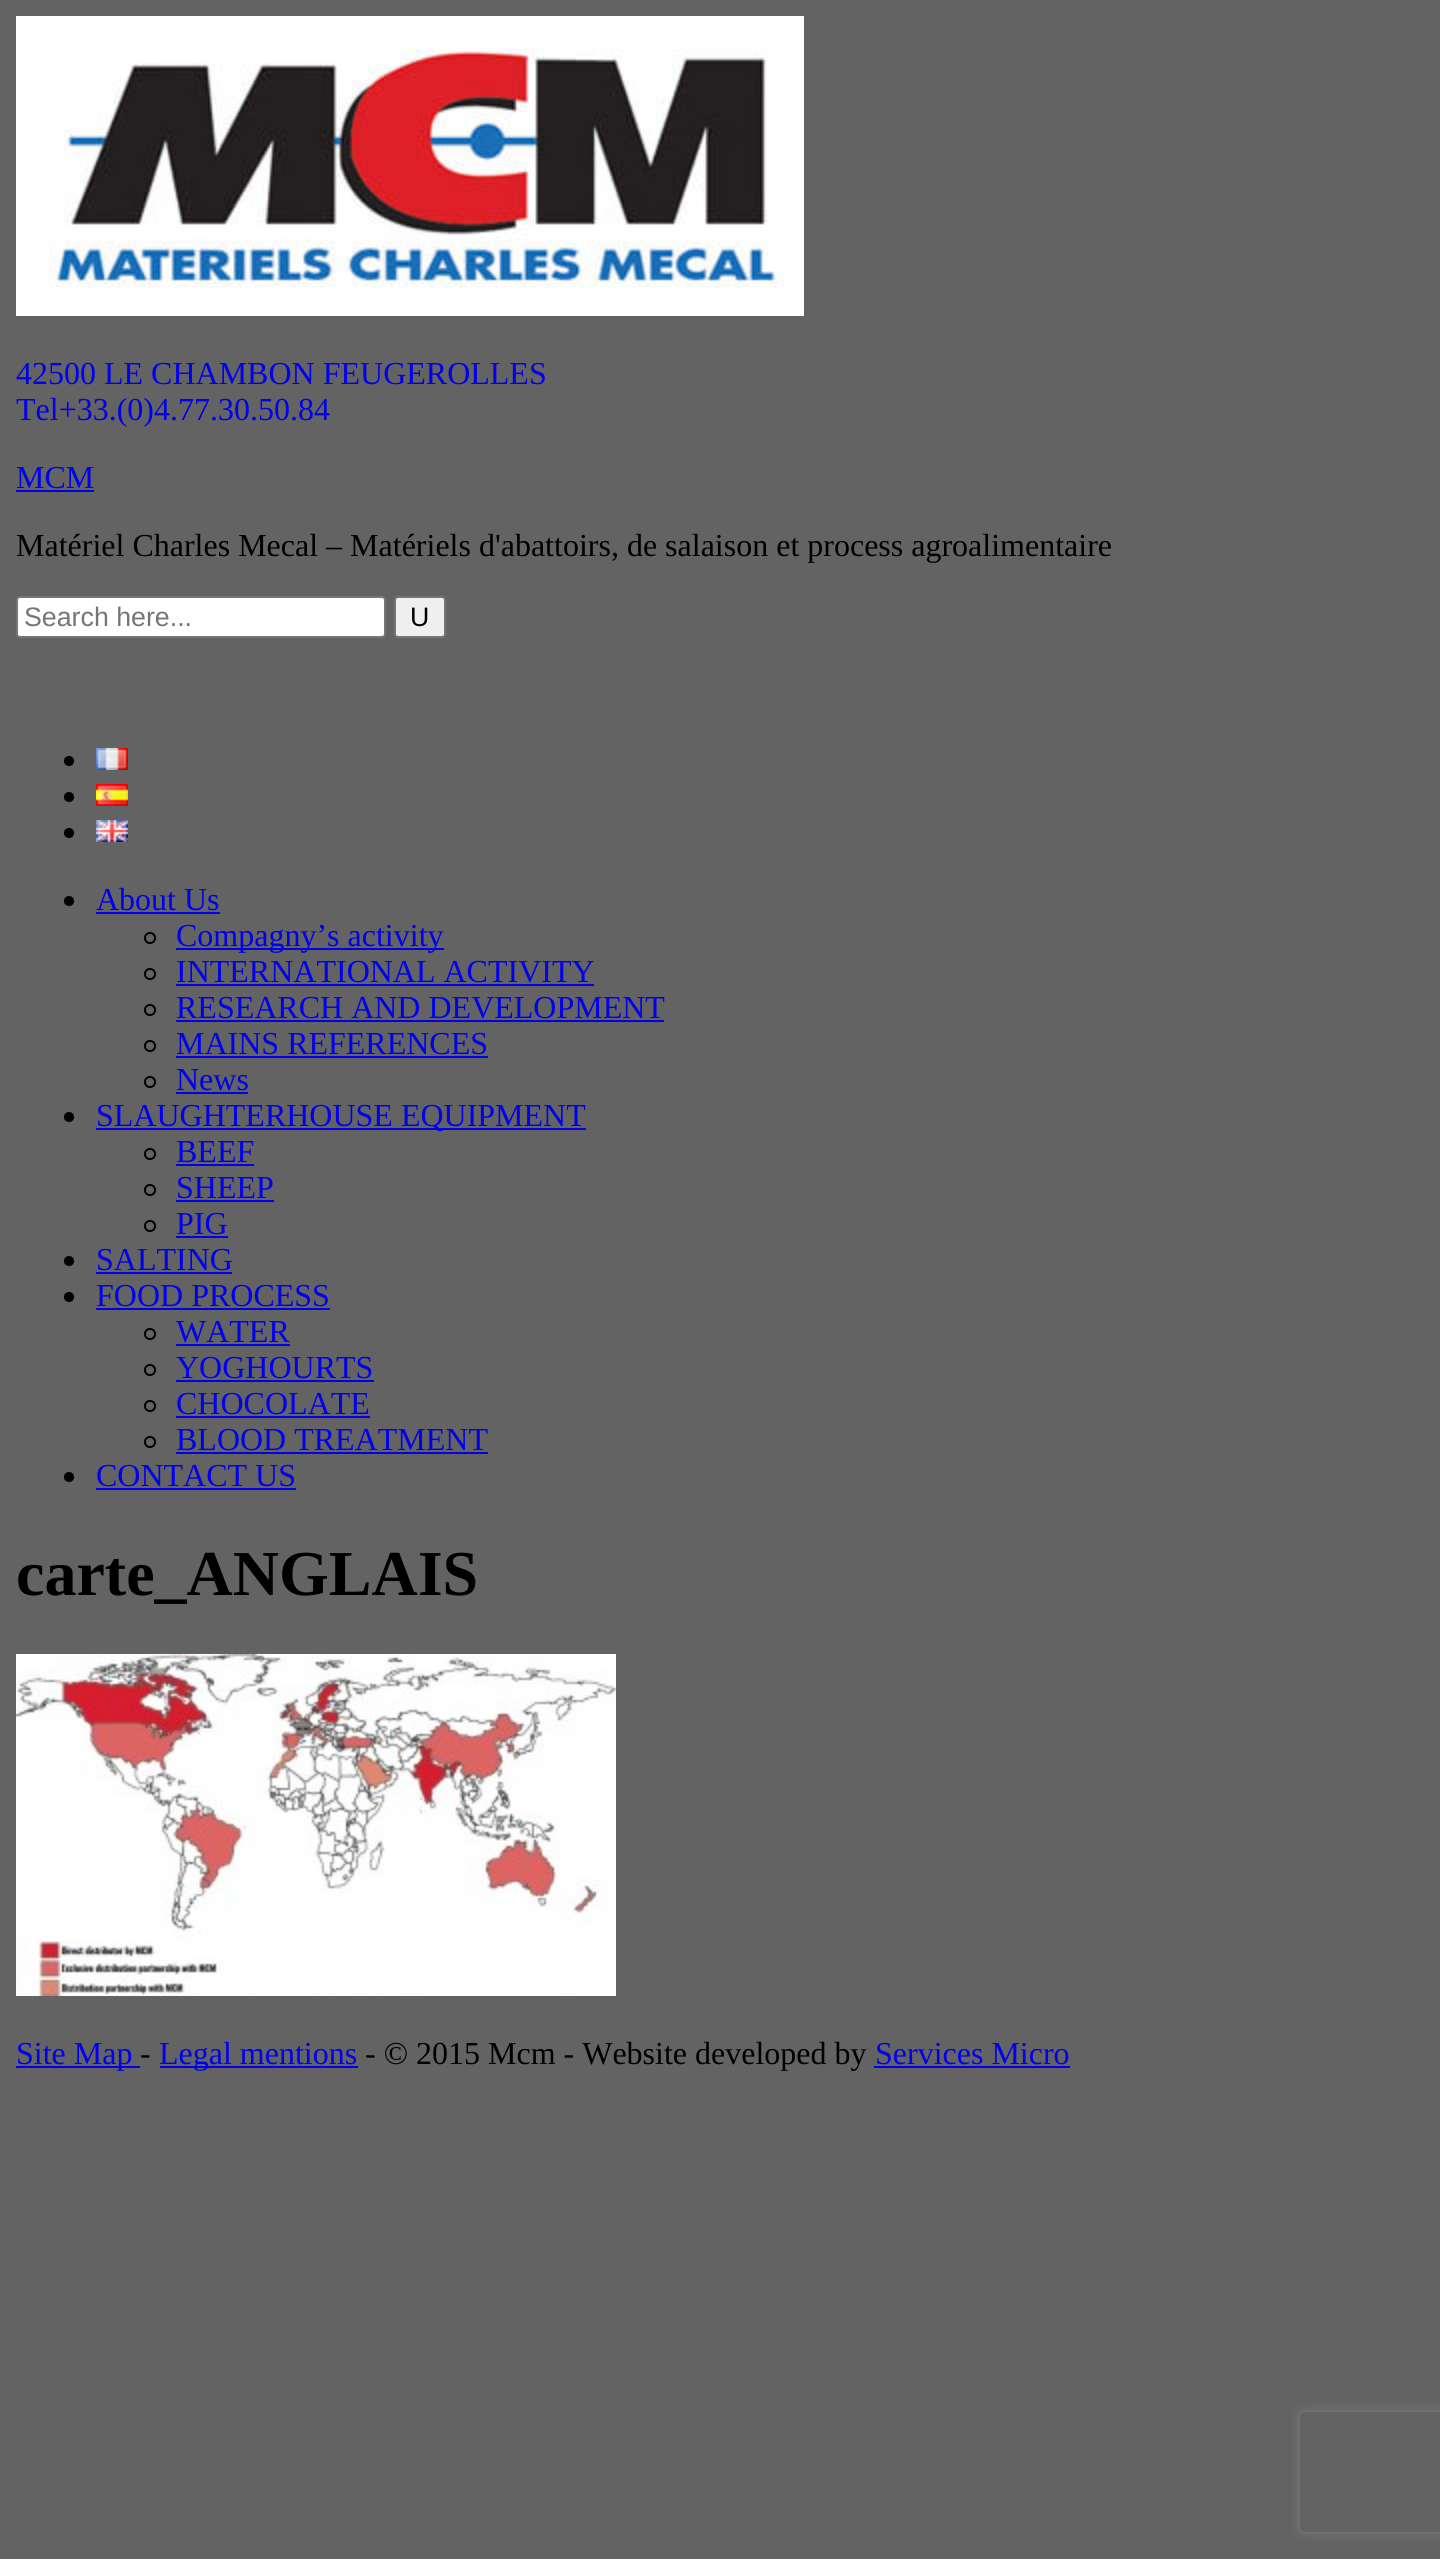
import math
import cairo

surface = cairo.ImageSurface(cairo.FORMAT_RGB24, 1440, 2559)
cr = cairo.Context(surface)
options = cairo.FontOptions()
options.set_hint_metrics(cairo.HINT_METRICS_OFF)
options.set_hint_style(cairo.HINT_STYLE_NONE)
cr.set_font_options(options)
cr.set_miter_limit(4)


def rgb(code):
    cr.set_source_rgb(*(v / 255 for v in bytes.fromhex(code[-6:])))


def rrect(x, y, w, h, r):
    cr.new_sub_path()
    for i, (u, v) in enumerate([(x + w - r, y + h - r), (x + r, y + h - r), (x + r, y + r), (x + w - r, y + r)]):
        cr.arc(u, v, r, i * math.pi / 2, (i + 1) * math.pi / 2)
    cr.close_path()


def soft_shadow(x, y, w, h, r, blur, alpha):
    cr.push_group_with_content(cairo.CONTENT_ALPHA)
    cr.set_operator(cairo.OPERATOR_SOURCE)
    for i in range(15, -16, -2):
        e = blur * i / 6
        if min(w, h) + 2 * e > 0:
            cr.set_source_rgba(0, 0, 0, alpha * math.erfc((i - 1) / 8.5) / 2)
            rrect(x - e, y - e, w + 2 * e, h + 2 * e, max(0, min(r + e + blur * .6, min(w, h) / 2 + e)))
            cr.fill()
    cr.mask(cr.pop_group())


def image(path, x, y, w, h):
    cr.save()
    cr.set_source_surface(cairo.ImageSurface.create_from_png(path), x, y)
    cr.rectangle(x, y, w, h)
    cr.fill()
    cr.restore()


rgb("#636363")
cr.paint()
image("img/1.png", 16, 16, 788, 300)
rgb("#0000ee")
cr.rectangle(16, 490, 78, 2)
cr.fill()
rgb("#ffffff")
rrect(17, 597, 368, 40, 3)
cr.fill_preserve()
rgb("#767676")
cr.stroke()
rgb("#efefef")
rrect(395, 597, 50, 40, 3)
cr.fill_preserve()
rgb("#767676")
cr.stroke()
rgb("#000000")
cr.arc(69, 761, 5, 0, 2 * math.pi)
cr.fill()
image("img/2.png", 96, 748, 32, 22)
cr.arc(69, 797, 5, 0, 2 * math.pi)
cr.fill()
image("img/3.png", 96, 784, 32, 22)
cr.arc(69, 833, 5, 0, 2 * math.pi)
cr.fill()
image("img/4.png", 96, 820, 32, 22)
cr.arc(69, 901, 5, 0, 2 * math.pi)
cr.fill()
rgb("#0000ee")
cr.rectangle(96, 912, 124, 2)
cr.fill()
cr.arc(150, 938, 5, 0, 2 * math.pi)
rgb("#000000")
cr.stroke()
rgb("#0000ee")
cr.rectangle(176, 948, 268, 2)
cr.fill()
cr.arc(150, 974, 5, 0, 2 * math.pi)
rgb("#000000")
cr.stroke()
rgb("#0000ee")
cr.rectangle(176, 984, 418, 2)
cr.fill()
cr.arc(150, 1010, 5, 0, 2 * math.pi)
rgb("#000000")
cr.stroke()
rgb("#0000ee")
cr.rectangle(176, 1020, 488, 2)
cr.fill()
cr.arc(150, 1046, 5, 0, 2 * math.pi)
rgb("#000000")
cr.stroke()
rgb("#0000ee")
cr.rectangle(176, 1056, 312, 2)
cr.fill()
cr.arc(150, 1082, 5, 0, 2 * math.pi)
rgb("#000000")
cr.stroke()
rgb("#0000ee")
cr.rectangle(176, 1092, 72, 2)
cr.fill()
rgb("#000000")
cr.arc(69, 1117, 5, 0, 2 * math.pi)
cr.fill()
rgb("#0000ee")
cr.rectangle(96, 1128, 490, 2)
cr.fill()
cr.arc(150, 1154, 5, 0, 2 * math.pi)
rgb("#000000")
cr.stroke()
rgb("#0000ee")
cr.rectangle(176, 1164, 78, 2)
cr.fill()
cr.arc(150, 1190, 5, 0, 2 * math.pi)
rgb("#000000")
cr.stroke()
rgb("#0000ee")
cr.rectangle(176, 1200, 98, 2)
cr.fill()
cr.arc(150, 1226, 5, 0, 2 * math.pi)
rgb("#000000")
cr.stroke()
rgb("#0000ee")
cr.rectangle(176, 1236, 52, 2)
cr.fill()
rgb("#000000")
cr.arc(69, 1261, 5, 0, 2 * math.pi)
cr.fill()
rgb("#0000ee")
cr.rectangle(96, 1272, 136, 2)
cr.fill()
rgb("#000000")
cr.arc(69, 1297, 5, 0, 2 * math.pi)
cr.fill()
rgb("#0000ee")
cr.rectangle(96, 1308, 234, 2)
cr.fill()
cr.arc(150, 1334, 5, 0, 2 * math.pi)
rgb("#000000")
cr.stroke()
rgb("#0000ee")
cr.rectangle(176, 1344, 114, 2)
cr.fill()
cr.arc(150, 1370, 5, 0, 2 * math.pi)
rgb("#000000")
cr.stroke()
rgb("#0000ee")
cr.rectangle(176, 1380, 198, 2)
cr.fill()
cr.arc(150, 1406, 5, 0, 2 * math.pi)
rgb("#000000")
cr.stroke()
rgb("#0000ee")
cr.rectangle(176, 1416, 194, 2)
cr.fill()
cr.arc(150, 1442, 5, 0, 2 * math.pi)
rgb("#000000")
cr.stroke()
rgb("#0000ee")
cr.rectangle(176, 1452, 312, 2)
cr.fill()
rgb("#000000")
cr.arc(69, 1477, 5, 0, 2 * math.pi)
cr.fill()
rgb("#0000ee")
cr.rectangle(96, 1488, 200, 2)
cr.fill()
image("img/5.png", 16, 1654, 600, 342)
for x, y, w, h, color in [
    (16, 2066, 124, 2, "#0000ee"),
    (160, 2066, 198, 2, "#0000ee"),
    (874, 2066, 196, 2, "#0000ee"),
]:
    rgb(color)
    cr.rectangle(x, y, w, h)
    cr.fill()
cr.save()
cr.set_fill_rule(cairo.FILL_RULE_EVEN_ODD)
cr.new_path()
cr.move_to(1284, 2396)
cr.line_to(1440, 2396)
cr.line_to(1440, 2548)
cr.line_to(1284, 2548)
cr.close_path()
cr.move_to(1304, 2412)
cr.line_to(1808, 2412)
cr.curve_to(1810, 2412, 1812, 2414, 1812, 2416)
cr.line_to(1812, 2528)
cr.curve_to(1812, 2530, 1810, 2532, 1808, 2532)
cr.line_to(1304, 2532)
cr.curve_to(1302, 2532, 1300, 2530, 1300, 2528)
cr.line_to(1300, 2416)
cr.curve_to(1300, 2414, 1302, 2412, 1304, 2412)
cr.close_path()
cr.clip()
rgb("#808080")
soft_shadow(1300, 2412, 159, 120, 4, 5, 1)
cr.restore()
cr.select_font_face("Liberation Serif")
cr.set_font_size(32)
for x, y, s in [
    (16, 384, "42500 LE CHAMBON FEUGEROLLES"),
    (16, 420, "Tel+33.(0)4.77.30.50.84"),
    (16, 488, "MCM"),
]:
    cr.move_to(x, y)
    cr.show_text(s)
rgb("#000000")
cr.move_to(16, 556)
cr.show_text("Matériel Charles Mecal – Matériels d'abattoirs, de salaison et process agroalimentaire")
cr.select_font_face("Liberation Sans")
cr.set_font_size(26.75)
rgb("#757575")
cr.move_to(24, 626)
cr.show_text("Search here...")
rgb("#000000")
cr.move_to(410, 626)
cr.show_text("U")
cr.select_font_face("Liberation Serif")
cr.set_font_size(32)
rgb("#0000ee")
for x, y, s in [
    (96, 910, "About Us"),
    (176, 946, "Compagny’s activity"),
    (176, 982, "INTERNATIONAL ACTIVITY"),
    (176, 1018, "RESEARCH AND DEVELOPMENT"),
    (176, 1054, "MAINS REFERENCES"),
    (176, 1090, "News"),
    (96, 1126, "SLAUGHTERHOUSE EQUIPMENT"),
    (176, 1162, "BEEF"),
    (176, 1198, "SHEEP"),
    (176, 1234, "PIG"),
    (96, 1270, "SALTING"),
    (96, 1306, "FOOD PROCESS"),
    (176, 1342, "WATER"),
    (176, 1378, "YOGHOURTS"),
    (176, 1414, "CHOCOLATE"),
    (176, 1450, "BLOOD TREATMENT"),
    (96, 1486, "CONTACT US"),
]:
    cr.move_to(x, y)
    cr.show_text(s)
cr.select_font_face("Liberation Serif", cairo.FONT_SLANT_NORMAL, cairo.FONT_WEIGHT_BOLD)
cr.set_font_size(64)
rgb("#000000")
cr.move_to(16, 1595)
cr.show_text("carte_ANGLAIS")
cr.select_font_face("Liberation Serif")
cr.set_font_size(32)
rgb("#0000ee")
cr.move_to(16, 2064)
cr.show_text("Site Map")
rgb("#000000")
cr.move_to(140, 2064)
cr.show_text("-")
rgb("#0000ee")
cr.move_to(159, 2064)
cr.show_text("Legal mentions")
rgb("#000000")
cr.move_to(365, 2064)
cr.show_text("- © 2015 Mcm - Website developed by")
rgb("#0000ee")
cr.move_to(875, 2064)
cr.show_text("Services Micro")
surface.write_to_png("page.png")
